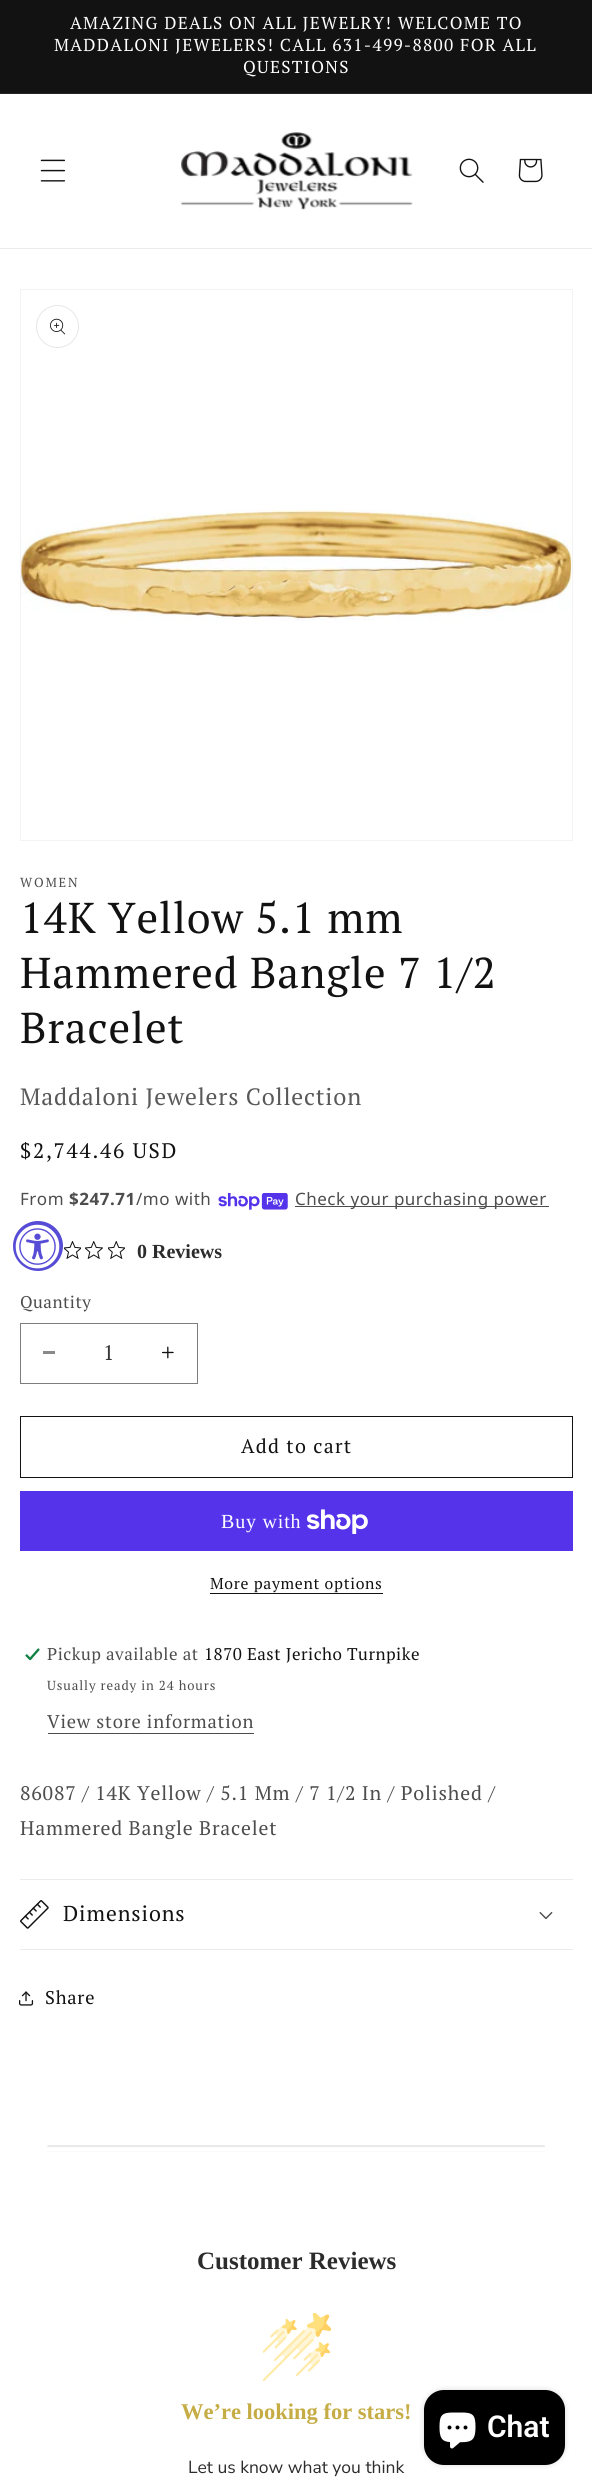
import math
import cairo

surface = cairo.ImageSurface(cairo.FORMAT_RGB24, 592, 2491)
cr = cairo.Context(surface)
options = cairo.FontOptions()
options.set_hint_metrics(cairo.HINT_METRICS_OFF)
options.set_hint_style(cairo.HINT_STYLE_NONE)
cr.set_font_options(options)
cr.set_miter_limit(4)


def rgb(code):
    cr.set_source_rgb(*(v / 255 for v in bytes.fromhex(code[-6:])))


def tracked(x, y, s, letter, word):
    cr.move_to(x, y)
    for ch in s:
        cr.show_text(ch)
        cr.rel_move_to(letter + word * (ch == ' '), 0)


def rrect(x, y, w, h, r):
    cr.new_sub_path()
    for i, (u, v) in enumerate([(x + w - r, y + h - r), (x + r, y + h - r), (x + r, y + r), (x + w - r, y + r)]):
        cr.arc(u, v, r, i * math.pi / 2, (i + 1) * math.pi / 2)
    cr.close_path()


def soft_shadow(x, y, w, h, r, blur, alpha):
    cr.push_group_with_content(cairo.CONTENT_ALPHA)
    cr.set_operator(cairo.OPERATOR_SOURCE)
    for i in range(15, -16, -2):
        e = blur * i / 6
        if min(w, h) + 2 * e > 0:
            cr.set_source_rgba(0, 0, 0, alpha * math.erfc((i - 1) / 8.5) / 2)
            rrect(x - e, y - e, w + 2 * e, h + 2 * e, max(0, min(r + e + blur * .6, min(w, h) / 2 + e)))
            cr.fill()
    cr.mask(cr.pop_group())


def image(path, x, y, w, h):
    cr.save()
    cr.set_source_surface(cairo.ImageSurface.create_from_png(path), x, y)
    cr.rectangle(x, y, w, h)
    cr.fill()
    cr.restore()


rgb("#ffffff")
cr.paint()
for x, y, w, h, color in [
    (0, 0, 592, 93, "#121212"),
    (0, 93, 592, 1, "#252525"),
    (0, 248, 592, 1, "#ececec"),
]:
    rgb(color)
    cr.rectangle(x, y, w, h)
    cr.fill()
image("img/1.png", 40, 159, 26, 23)
image("img/2.png", 181, 132, 232, 78)
image("img/3.png", 459, 158, 25, 25)
image("img/4.png", 518, 158, 25, 25)
cr.rectangle(20.5, 289.5, 552, 551)
rgb("#f3f3f3")
cr.set_line_width(1)
cr.stroke()
cr.arc(57.5, 326.5, 21, 0, 2 * math.pi)
rgb("#e7e7e7")
cr.stroke()
image("img/5.png", 50, 318, 15, 17)
image("img/6.png", 21, 509, 551, 112)
image("img/7.png", 218, 1193, 70, 17)
rgb("#4d4d4d")
cr.rectangle(295, 1206, 254, 1)
cr.fill()
image("img/8.png", 64, 1241, 17, 18)
image("img/9.png", 85, 1241, 18, 18)
image("img/10.png", 108, 1241, 17, 18)
rgb("#898989")
cr.rectangle(43, 1351, 12, 3)
cr.fill()
image("img/11.png", 161, 1346, 13, 13)
cr.rectangle(20.5, 1323.5, 177, 60)
rgb("#7d7d7d")
cr.stroke()
cr.rectangle(20.5, 1416.5, 552, 61)
rgb("#121212")
cr.stroke()
rgb("#5433eb")
cr.rectangle(20, 1491, 553, 60)
cr.fill()
image("img/12.png", 306, 1509, 62, 25)
rgb("#121212")
cr.rectangle(210, 1593, 173, 1)
cr.fill()
image("img/13.png", 24, 1647, 17, 14)
for x, y, w, h, color in [
    (48, 1733, 206, 1, "#4d4d4d"),
    (20, 1879, 553, 1, "#ececec"),
    (20, 1949, 553, 1, "#ececec"),
]:
    rgb(color)
    cr.rectangle(x, y, w, h)
    cr.fill()
image("img/14.png", 20, 1900, 29, 29)
image("img/15.png", 539, 1912, 14, 8)
image("img/16.png", 19, 1991, 15, 15)
image("img/17.png", 47, 2145, 498, 7)
image("img/18.png", 263, 2313, 68, 68)
rgb("#574cd5")
cr.arc(38, 1246, 25, 0, 2 * math.pi)
cr.fill()
image("img/19.png", 15, 1224, 45, 45)
rgb("#000000")
soft_shadow(424, 2390, 141, 75, 20, 3, 0.15)
rgb("#000000")
rrect(424, 2390, 141, 75, 20)
cr.fill()
image("img/20.png", 439, 2412, 37, 37)
cr.select_font_face("PT Serif")
cr.set_font_size(17.25)
rgb("#ffffff")
for x, y, s in [
    (70, 29, "AMAZING DEALS ON ALL JEWELRY! WELCOME TO"),
    (54, 51, "MADDALONI JEWELERS! CALL 631-499-8800 FOR ALL"),
    (243, 73, "QUESTIONS"),
]:
    tracked(x, y, s, 1.3, 0)
cr.set_font_size(13.1)
rgb("#4d4d4d")
tracked(20, 887, "WOMEN", 1.75, 0)
cr.set_font_size(43.1)
rgb("#121212")
for x, y, s in [
    (20, 933, "14K Yellow 5.1 mm"),
    (20, 988, "Hammered Bangle 7 1/2"),
    (20, 1043, "Bracelet"),
]:
    tracked(x, y, s, 0.9, 0)
cr.set_font_size(23.6)
rgb("#595959")
tracked(20, 1105, "Maddaloni Jewelers Collection", 0.8, 0)
cr.set_font_size(21)
rgb("#121212")
tracked(20, 1158, "$2,744.46 USD", 1.75, 0)
cr.select_font_face("Noto Sans")
cr.set_font_size(17)
rgb("#4d4d4d")
tracked(20, 1205, "From", 0.5, 0)
cr.select_font_face("Noto Sans", cairo.FONT_SLANT_NORMAL, cairo.FONT_WEIGHT_BOLD)
tracked(69, 1205, "$247.71", 0.5, 0)
cr.select_font_face("Noto Sans")
tracked(136, 1205, "/mo with", 0.5, 0)
tracked(295, 1205, "Check your purchasing power", 0.5, 0)
cr.select_font_face("Liberation Serif", cairo.FONT_SLANT_NORMAL, cairo.FONT_WEIGHT_BOLD)
cr.set_font_size(20)
rgb("#2c2c2c")
cr.move_to(137, 1258)
cr.show_text("0 Reviews")
cr.select_font_face("PT Serif")
cr.set_font_size(17)
rgb("#4d4d4d")
tracked(20, 1308, "Quantity", 0.5, 0)
cr.set_font_size(21)
rgb("#363636")
cr.move_to(103, 1360)
cr.show_text("1")
cr.set_font_size(19.7)
rgb("#121212")
tracked(241, 1453, "Add to cart", 1.3, 0)
cr.select_font_face("Liberation Serif")
cr.set_font_size(20)
rgb("#ffffff")
tracked(221, 1528, "Buy with", 0.8, 0)
cr.select_font_face("PT Serif")
cr.set_font_size(15.75)
rgb("#121212")
tracked(210, 1589, "More payment options", 0.7, 0)
cr.set_font_size(17)
rgb("#4d4d4d")
tracked(47, 1660, "Pickup available at", 0.5, 0)
rgb("#121212")
tracked(204, 1660, "1870 East Jericho Turnpike", 0.5, 0)
cr.set_font_size(13.1)
rgb("#4d4d4d")
tracked(47, 1690, "Usually ready in 24 hours", 0.9, 0)
cr.set_font_size(18.4)
tracked(47, 1728, "View store information", 0.8, 0)
cr.set_font_size(19.7)
tracked(20, 1800, "86087 / 14K Yellow / 5.1 Mm / 7 1/2 In / Polished /", 0.8, 0)
tracked(20, 1835, "Hammered Bangle Bracelet", 0.8, 0)
cr.set_font_size(21.5)
rgb("#121212")
tracked(63, 1921, "Dimensions", 0.9, 0)
cr.set_font_size(18.4)
tracked(45, 2004, "Share", 0.8, 0)
cr.select_font_face("Liberation Serif", cairo.FONT_SLANT_NORMAL, cairo.FONT_WEIGHT_BOLD)
cr.set_font_size(25)
rgb("#2c2c2c")
cr.move_to(197, 2269)
cr.show_text("Customer Reviews")
cr.set_font_size(22.5)
rgb("#c6ac45")
cr.move_to(181, 2419)
cr.show_text("We’re looking for stars!")
cr.select_font_face("Nunito Sans ExtraLight")
cr.set_font_size(17.5)
rgb("#2c2c2c")
cr.move_to(188, 2473)
cr.show_text("Let us know what you think")
cr.select_font_face("Roboto SemiBold")
cr.set_font_size(30)
rgb("#ffffff")
cr.move_to(487, 2437)
cr.show_text("Chat")
surface.write_to_png("page.png")
